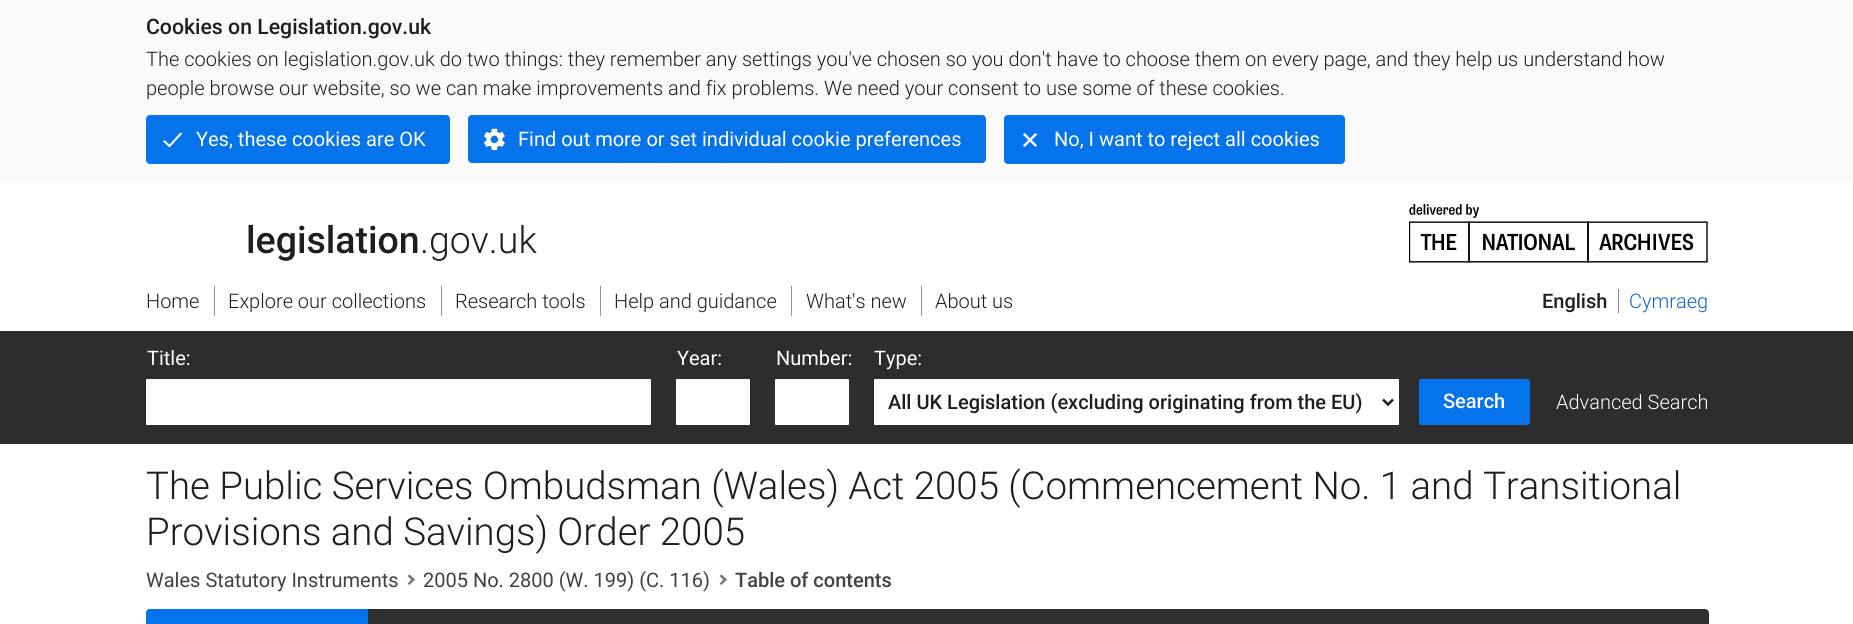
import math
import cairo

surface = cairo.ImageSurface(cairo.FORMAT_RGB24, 1853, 624)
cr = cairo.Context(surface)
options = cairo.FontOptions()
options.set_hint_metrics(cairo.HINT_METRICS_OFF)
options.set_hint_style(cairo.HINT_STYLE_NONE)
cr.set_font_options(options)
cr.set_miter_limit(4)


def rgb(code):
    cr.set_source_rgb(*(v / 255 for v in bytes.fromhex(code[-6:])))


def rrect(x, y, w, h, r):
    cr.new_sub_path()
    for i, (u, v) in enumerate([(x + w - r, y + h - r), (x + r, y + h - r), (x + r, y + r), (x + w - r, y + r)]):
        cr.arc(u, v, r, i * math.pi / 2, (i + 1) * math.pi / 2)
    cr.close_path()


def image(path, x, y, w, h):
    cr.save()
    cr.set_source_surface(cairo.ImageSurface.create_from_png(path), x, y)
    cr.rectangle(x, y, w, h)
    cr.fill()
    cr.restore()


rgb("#ffffff")
cr.paint()
rgb("#fafafa")
cr.rectangle(0, 0, 1853, 181)
cr.fill()
rgb("#0573eb")
rrect(146, 115, 304, 49, 4)
cr.fill()
cr.new_path()
cr.move_to(180.5, 134)
cr.line_to(169.5, 146)
cr.line_to(164.5, 141.5)
rgb("#ffffff")
cr.set_line_width(2.1)
cr.set_line_cap(cairo.LINE_CAP_SQUARE)
cr.stroke()
rgb("#0573eb")
rrect(468, 115, 518, 48, 4)
cr.fill()
image("img/1.png", 484, 128, 21, 23)
rrect(1004, 115, 341, 49, 4)
cr.fill()
image("img/2.png", 1023, 133, 14, 14)
image("img/3.png", 1409, 204, 299, 59)
for x, y, w, h, color in [
    (1618, 289, 1, 24, "#878787"),
    (0, 331, 1853, 113, "#2d2d2d"),
    (214, 286, 1, 30, "#919191"),
    (441, 286, 1, 30, "#919191"),
    (600, 286, 1, 30, "#919191"),
    (791, 286, 1, 30, "#919191"),
    (921, 286, 1, 30, "#919191"),
]:
    rgb(color)
    cr.rectangle(x, y, w, h)
    cr.fill()
rgb("#ffffff")
rrect(146, 379, 505, 46, 1)
cr.fill()
rrect(676, 379, 74, 46, 1)
cr.fill()
rrect(775, 379, 74, 46, 1)
cr.fill()
rrect(874, 379, 525, 46, 1)
cr.fill()
cr.new_path()
cr.move_to(1383, 399.5)
cr.line_to(1388, 404.5)
cr.line_to(1393, 399.5)
rgb("#1e1e1e")
cr.set_line_width(2.5)
cr.set_line_cap(cairo.LINE_CAP_BUTT)
cr.stroke()
rgb("#0573eb")
rrect(1419, 379, 111, 46, 2.5)
cr.fill()
rgb("#787878")
cr.new_path()
cr.move_to(409.5, 574.5)
cr.line_to(415, 579.5)
cr.line_to(413, 581.5)
cr.line_to(407.5, 576)
cr.close_path()
cr.fill()
cr.new_path()
cr.move_to(413, 578)
cr.line_to(415, 579.5)
cr.line_to(409.5, 585)
cr.line_to(407.5, 583.5)
cr.close_path()
cr.fill()
cr.new_path()
cr.move_to(721.5, 574.5)
cr.line_to(727, 579.5)
cr.line_to(725, 581.5)
cr.line_to(719.5, 576)
cr.close_path()
cr.fill()
cr.new_path()
cr.move_to(725, 578)
cr.line_to(727, 579.5)
cr.line_to(721.5, 585)
cr.line_to(719.5, 583.5)
cr.close_path()
cr.fill()
rgb("#2e2f2e")
cr.new_path()
cr.move_to(150, 609)
cr.line_to(1705, 609)
cr.curve_to(1707, 609, 1709, 611, 1709, 613)
cr.line_to(1709, 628)
cr.line_to(146, 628)
cr.line_to(146, 613)
cr.curve_to(146, 611, 148, 609, 150, 609)
cr.close_path()
cr.fill()
rgb("#0573eb")
cr.new_path()
cr.move_to(150, 609)
cr.line_to(368, 609)
cr.line_to(368, 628)
cr.line_to(146, 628)
cr.line_to(146, 613)
cr.curve_to(146, 611, 148, 609, 150, 609)
cr.close_path()
cr.fill()
cr.select_font_face("Roboto Medium")
cr.set_font_size(21.25)
rgb("#1e1e1e")
cr.move_to(146, 34)
cr.show_text("Cookies on Legislation.gov.uk")
cr.select_font_face("Roboto Light")
cr.set_font_size(20)
cr.move_to(146, 66)
cr.show_text("The cookies on legislation.gov.uk do two things: they remember any settings you've chosen so you don't have to choose them on every page, and they help us understand how")
cr.move_to(146, 95)
cr.show_text("people browse our website, so we can make improvements and fix problems. We need your consent to use some of these cookies.")
cr.select_font_face("Roboto")
rgb("#ffffff")
for x, y, s in [
    (196, 146, "Yes, these cookies are OK"),
    (518, 146, "Find out more or set individual cookie preferences"),
    (1054, 146, "No, I want to reject all cookies"),
]:
    cr.move_to(x, y)
    cr.show_text(s)
cr.select_font_face("Roboto Medium")
cr.set_font_size(37.5)
rgb("#1e1e1e")
cr.move_to(246, 253)
cr.show_text("legislation")
cr.select_font_face("Roboto Light")
cr.move_to(420, 253)
cr.show_text(".gov.uk")
cr.select_font_face("Roboto Medium")
cr.set_font_size(20)
cr.move_to(1542, 308)
cr.show_text("English")
cr.select_font_face("Roboto Light")
rgb("#0a64d7")
cr.move_to(1629, 308)
cr.show_text("Cymraeg")
rgb("#1e1e1e")
for x, y, s in [
    (146, 308, "Home"),
    (228, 308, "Explore our collections"),
    (455, 308, "Research tools"),
    (614, 308, "Help and guidance"),
    (806, 308, "What's new"),
    (935, 308, "About us"),
]:
    cr.move_to(x, y)
    cr.show_text(s)
cr.select_font_face("Roboto")
rgb("#ffffff")
for x, y, s in [
    (147, 365, "Title:"),
    (677, 365, "Year:"),
    (776, 365, "Number:"),
    (874, 365, "Type:"),
]:
    cr.move_to(x, y)
    cr.show_text(s)
cr.select_font_face("Roboto Medium")
rgb("#1e1e1e")
cr.move_to(888, 409)
cr.show_text("All UK Legislation (excluding originating from the EU)")
rgb("#ffffff")
cr.move_to(1443, 408)
cr.show_text("Search")
cr.select_font_face("Roboto Light")
cr.move_to(1556, 409)
cr.show_text("Advanced Search")
cr.set_font_size(38.4)
rgb("#1e1e1e")
cr.move_to(146, 499)
cr.show_text("The Public Services Ombudsman (Wales) Act 2005 (Commencement No. 1 and Transitional")
cr.move_to(146, 545)
cr.show_text("Provisions and Savings) Order 2005")
cr.select_font_face("Roboto")
cr.set_font_size(20)
rgb("#414141")
cr.move_to(146, 587)
cr.show_text("Wales Statutory Instruments")
cr.move_to(423, 587)
cr.show_text("2005 No. 2800 (W. 199) (C. 116)")
cr.select_font_face("Roboto Medium")
cr.move_to(735, 587)
cr.show_text("Table of contents")
surface.write_to_png("page.png")
